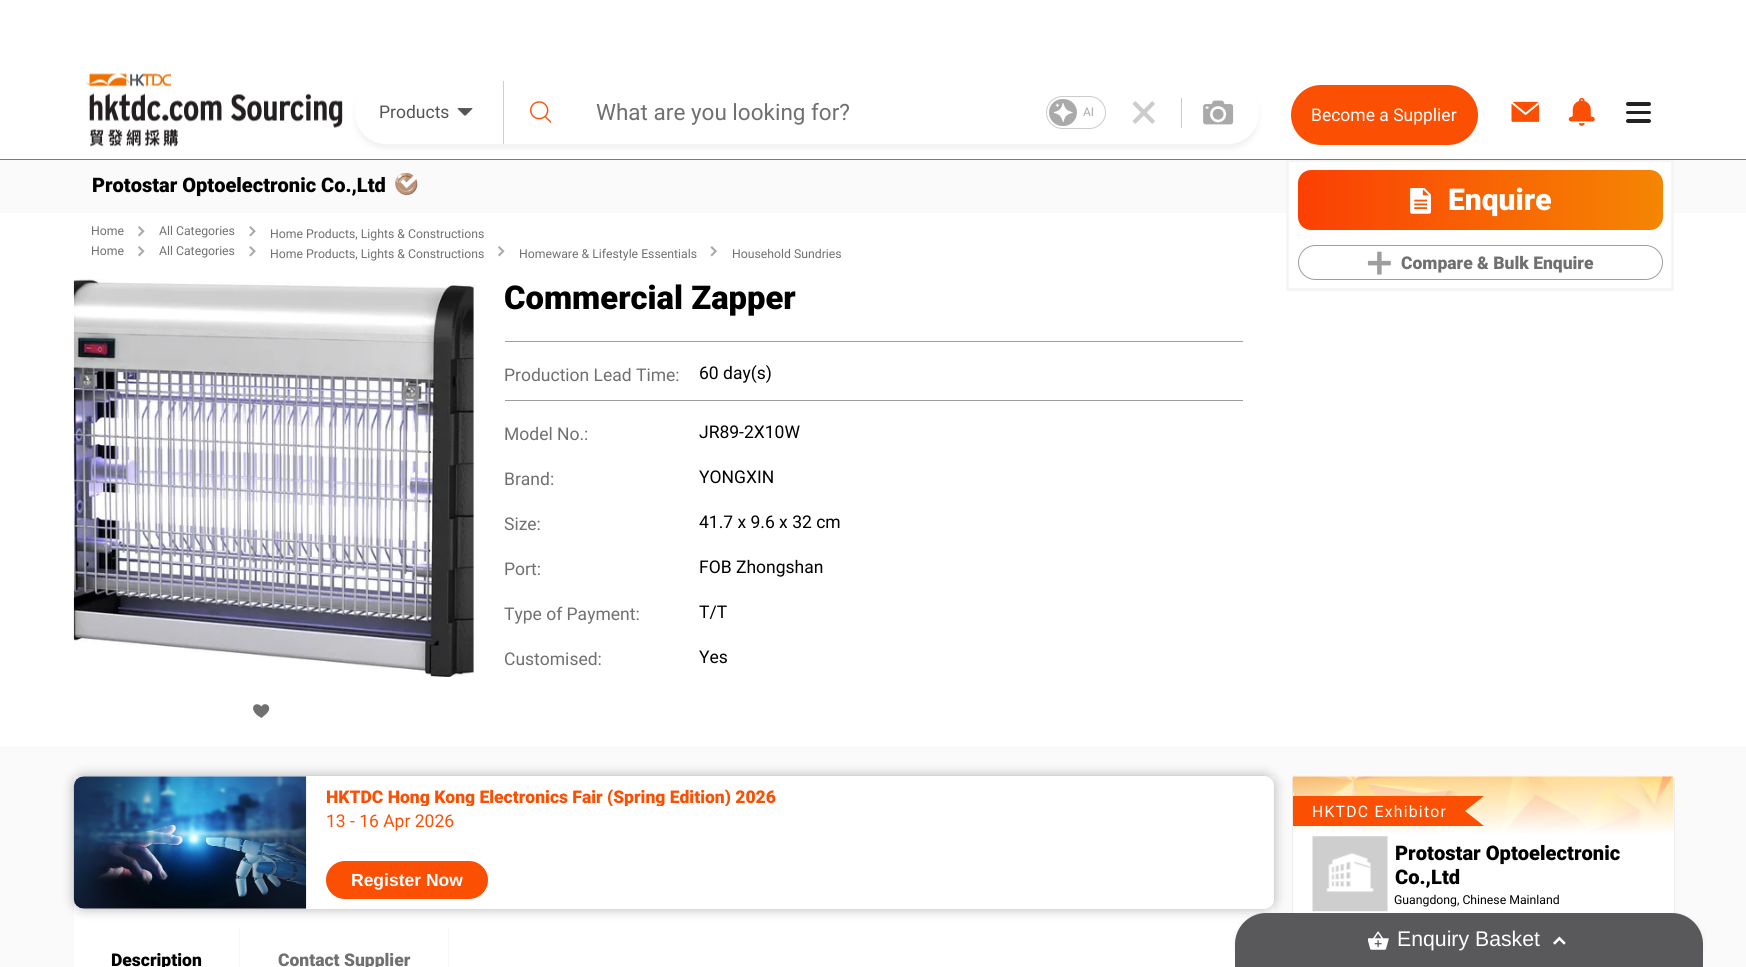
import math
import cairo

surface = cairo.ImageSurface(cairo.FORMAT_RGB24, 1746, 967)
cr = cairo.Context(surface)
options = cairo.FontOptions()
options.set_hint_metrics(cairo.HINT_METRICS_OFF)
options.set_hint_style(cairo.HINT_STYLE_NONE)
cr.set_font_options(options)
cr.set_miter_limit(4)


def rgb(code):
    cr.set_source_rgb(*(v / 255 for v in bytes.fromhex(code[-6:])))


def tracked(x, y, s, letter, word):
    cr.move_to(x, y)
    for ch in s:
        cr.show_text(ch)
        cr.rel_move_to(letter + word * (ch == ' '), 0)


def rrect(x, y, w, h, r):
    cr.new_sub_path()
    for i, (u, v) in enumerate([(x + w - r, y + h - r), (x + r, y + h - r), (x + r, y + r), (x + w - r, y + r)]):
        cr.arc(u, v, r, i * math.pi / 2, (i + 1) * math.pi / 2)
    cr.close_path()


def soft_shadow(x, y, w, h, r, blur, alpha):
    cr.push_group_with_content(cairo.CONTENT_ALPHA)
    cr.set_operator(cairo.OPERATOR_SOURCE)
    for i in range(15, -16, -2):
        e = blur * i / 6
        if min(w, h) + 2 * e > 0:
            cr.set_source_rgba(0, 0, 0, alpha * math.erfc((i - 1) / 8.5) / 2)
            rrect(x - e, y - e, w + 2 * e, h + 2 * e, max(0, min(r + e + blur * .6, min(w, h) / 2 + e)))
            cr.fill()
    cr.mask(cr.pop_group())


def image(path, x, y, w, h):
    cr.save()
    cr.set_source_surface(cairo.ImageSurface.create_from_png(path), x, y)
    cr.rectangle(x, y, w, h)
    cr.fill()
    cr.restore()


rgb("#ffffff")
cr.paint()
rgb("#fafafa")
cr.rectangle(0, 160, 1746, 53)
cr.fill()
rgb("#ffffff")
cr.rectangle(1289, 162, 382, 51)
cr.fill()
cr.rectangle(1287.5, 160.5, 385, 129)
rgb("#f5f5f5")
cr.set_line_width(3)
cr.stroke()
rgb("#fb5004")
cr.rectangle(0, 159, 1746, 1)
cr.fill()
image("img/1.png", 86, 73, 257, 74)
cr.save()
cr.set_fill_rule(cairo.FILL_RULE_EVEN_ODD)
cr.new_path()
cr.move_to(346, 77)
cr.line_to(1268, 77)
cr.line_to(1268, 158)
cr.line_to(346, 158)
cr.close_path()
cr.move_to(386.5, 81)
cr.line_to(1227.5, 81)
cr.curve_to(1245, 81, 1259, 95, 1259, 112.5)
cr.curve_to(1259, 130, 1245, 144, 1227.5, 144)
cr.line_to(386.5, 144)
cr.curve_to(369, 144, 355, 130, 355, 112.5)
cr.curve_to(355, 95, 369, 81, 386.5, 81)
cr.close_path()
cr.clip()
rgb("#7f7f7f")
soft_shadow(355, 86, 904, 63, 31.5, 2.5, 0.1)
cr.restore()
rgb("#cfcfcf")
cr.rectangle(503, 81, 1, 63)
cr.fill()
image("img/2.png", 457, 108, 16, 8)
image("img/3.png", 530, 101, 21, 22)
rrect(1046.5, 96.5, 59, 32, 16)
rgb("#cccccc")
cr.set_line_width(1)
cr.stroke()
image("img/4.png", 1049, 99, 28, 27)
image("img/5.png", 1132, 101, 23, 23)
cr.rectangle(1181, 98, 1, 30)
cr.fill()
image("img/6.png", 1203, 100, 31, 25)
rgb("#fb5004")
rrect(1291, 85, 187, 60, 30)
cr.fill()
image("img/7.png", 1511, 101, 28, 21)
image("img/8.png", 1568, 98, 27, 28)
rgb("#222222")
rrect(1626, 102, 25, 4, 2)
cr.fill()
rrect(1626, 111, 25, 3, 1.5)
cr.fill()
rrect(1626, 119, 25, 4, 2)
cr.fill()
image("img/9.png", 395, 173, 23, 22)
gradient = cairo.LinearGradient(1663, 200, 1297, 200)
gradient.add_color_stop_rgba(0, 0.961, 0.525, 0.012, 1)
gradient.add_color_stop_rgba(1, 0.984, 0.247, 0.016, 1)
cr.set_source(gradient)
rrect(1298, 170, 365, 60, 13)
cr.fill()
image("img/10.png", 1410, 188, 21, 26)
rrect(1298.5, 245.5, 364, 34, 17)
rgb("#9e9e9e")
cr.stroke()
image("img/11.png", 1367, 251, 24, 24)
image("img/12.png", 138, 226, 7, 11)
image("img/13.png", 249, 226, 7, 11)
image("img/12.png", 138, 246, 7, 11)
image("img/13.png", 249, 246, 7, 11)
image("img/12.png", 498, 246, 7, 11)
image("img/14.png", 710, 246, 7, 11)
image("img/15.png", 73, 279, 401, 398)
rgb("#707070")
cr.new_path()
cr.move_to(261.5, 706.5)
cr.curve_to(264.5, 700.5, 275, 707, 265, 715)
cr.line_to(261.5, 718)
cr.line_to(257.5, 715.5)
cr.curve_to(248, 707.5, 256, 700.5, 261.5, 706.5)
cr.close_path()
cr.fill()
for x, y, w, h, color in [
    (505, 341, 738, 1, "#9e9e9e"),
    (505, 400, 738, 1, "#9e9e9e"),
    (0, 746, 1746, 221, "#fafafa"),
    (74, 776, 1200, 191, "#ffffff"),
]:
    rgb(color)
    cr.rectangle(x, y, w, h)
    cr.fill()
rgb("#000000")
soft_shadow(74, 776, 1200, 133, 10, 6, 0.3)
rgb("#ffffff")
rrect(74, 776, 1200, 133, 10)
cr.fill()
image("img/16.png", 73, 776, 234, 133)
rgb("#fb5004")
rrect(326, 861, 162, 38, 19)
cr.fill()
rgb("#f5f5f5")
cr.new_path()
cr.move_to(240, 929)
cr.line_to(240, 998)
cr.line_to(239, 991)
cr.line_to(239, 929)
cr.close_path()
cr.fill()
cr.rectangle(448, 929, 1, 38)
cr.fill()
rgb("#070001")
soft_shadow(1293, 778, 381, 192, 1, 0.5, 0.22)
rgb("#ffffff")
rrect(1293, 776, 381, 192, 1)
cr.fill()
image("img/17.png", 1292, 776, 382, 57)
rgb("#fb5004")
cr.new_path()
cr.move_to(1484, 826)
cr.line_to(1293, 826)
cr.line_to(1293, 796)
cr.line_to(1484, 796)
cr.line_to(1465, 811)
cr.close_path()
cr.fill()
image("img/18.png", 1312, 836, 76, 76)
rgb("#000000")
soft_shadow(1235, 916, 468, 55, 31, 3, 0.06)
rgb("#59595b")
cr.new_path()
cr.move_to(1266, 913)
cr.line_to(1672, 913)
cr.curve_to(1689, 913, 1703, 927, 1703, 944)
cr.line_to(1703, 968)
cr.line_to(1235, 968)
cr.line_to(1235, 944)
cr.curve_to(1235, 927, 1249, 913, 1266, 913)
cr.close_path()
cr.fill()
image("img/19.png", 1368, 931, 21, 19)
image("img/20.png", 1553, 936, 13, 9)
cr.select_font_face("Roboto")
cr.set_font_size(17.5)
rgb("#555555")
cr.move_to(379, 118)
cr.show_text("Products")
cr.set_font_size(22.5)
rgb("#707070")
cr.move_to(596, 120)
cr.show_text("What are you looking for?")
cr.set_font_size(12)
rgb("#aaaaaa")
cr.move_to(1083, 116)
cr.show_text("AI")
cr.set_font_size(17.5)
rgb("#ffffff")
cr.move_to(1311, 121)
cr.show_text("Become a Supplier")
cr.select_font_face("Roboto Black")
cr.set_font_size(20)
rgb("#000000")
cr.move_to(92, 192)
cr.show_text("Protostar Optoelectronic Co.,Ltd")
cr.set_font_size(30)
rgb("#ffffff")
cr.move_to(1448, 210)
cr.show_text("Enquire")
cr.set_font_size(17.5)
rgb("#707070")
cr.move_to(1401, 269)
cr.show_text("Compare & Bulk Enquire")
cr.select_font_face("Roboto")
cr.set_font_size(12.25)
for x, y, s in [
    (91, 235, "Home"),
    (159, 235, "All Categories"),
    (270, 238, "Home Products, Lights & Constructions"),
    (91, 255, "Home"),
    (159, 255, "All Categories"),
    (270, 258, "Home Products, Lights & Constructions"),
    (519, 258, "Homeware & Lifestyle Essentials"),
    (732, 258, "Household Sundries"),
]:
    cr.move_to(x, y)
    cr.show_text(s)
cr.select_font_face("Roboto Black")
cr.set_font_size(32.75)
rgb("#000000")
cr.move_to(504, 309)
cr.show_text("Commercial Zapper")
cr.select_font_face("Roboto")
cr.set_font_size(17.5)
rgb("#707070")
cr.move_to(504, 381)
cr.show_text("Production Lead Time:")
rgb("#000000")
cr.move_to(699, 379)
cr.show_text("60 day(s)")
rgb("#707070")
cr.move_to(504, 440)
cr.show_text("Model No.:")
rgb("#000000")
cr.move_to(699, 438)
cr.show_text("JR89-2X10W")
rgb("#707070")
cr.move_to(504, 485)
cr.show_text("Brand:")
rgb("#000000")
cr.move_to(699, 483)
cr.show_text("YONGXIN")
rgb("#707070")
cr.move_to(504, 530)
cr.show_text("Size:")
rgb("#000000")
cr.move_to(699, 528)
cr.show_text("41.7 x 9.6 x 32 cm")
rgb("#707070")
cr.move_to(504, 575)
cr.show_text("Port:")
rgb("#000000")
cr.move_to(699, 573)
cr.show_text("FOB Zhongshan")
rgb("#707070")
cr.move_to(504, 620)
cr.show_text("Type of Payment:")
rgb("#000000")
cr.move_to(699, 618)
cr.show_text("T/T")
rgb("#707070")
cr.move_to(504, 665)
cr.show_text("Customised:")
rgb("#000000")
cr.move_to(699, 663)
cr.show_text("Yes")
cr.save()
cr.rectangle(326, 786, 928, 20)
cr.clip()
cr.select_font_face("Roboto Black")
rgb("#fb5004")
cr.move_to(326, 803)
cr.show_text("HKTDC Hong Kong Electronics Fair (Spring Edition) 2026")
cr.restore()
rgb("#fb5004")
cr.move_to(326, 827)
cr.show_text("13 - 16 Apr 2026")
cr.select_font_face("Liberation Sans", cairo.FONT_SLANT_NORMAL, cairo.FONT_WEIGHT_BOLD)
rgb("#ffffff")
cr.move_to(351, 886)
cr.show_text("Register Now")
cr.select_font_face("Roboto Black")
rgb("#000000")
cr.move_to(111, 966)
cr.show_text("Description")
rgb("#707070")
cr.move_to(278, 966)
cr.show_text("Contact Supplier")
cr.select_font_face("Roboto")
cr.set_font_size(15.75)
rgb("#ffffff")
tracked(1312, 817, "HKTDC Exhibitor", 1.25, 0)
cr.select_font_face("Roboto Black")
cr.set_font_size(20.1)
rgb("#000000")
cr.move_to(1395, 860)
cr.show_text("Protostar Optoelectronic")
cr.move_to(1395, 884)
cr.show_text("Co.,Ltd")
cr.select_font_face("Roboto")
cr.set_font_size(12.25)
cr.move_to(1394, 904)
cr.show_text("Guangdong, Chinese Mainland")
cr.select_font_face("Liberation Sans")
cr.set_font_size(21.25)
rgb("#ffffff")
cr.move_to(1397, 946)
cr.show_text("Enquiry Basket")
surface.write_to_png("page.png")
